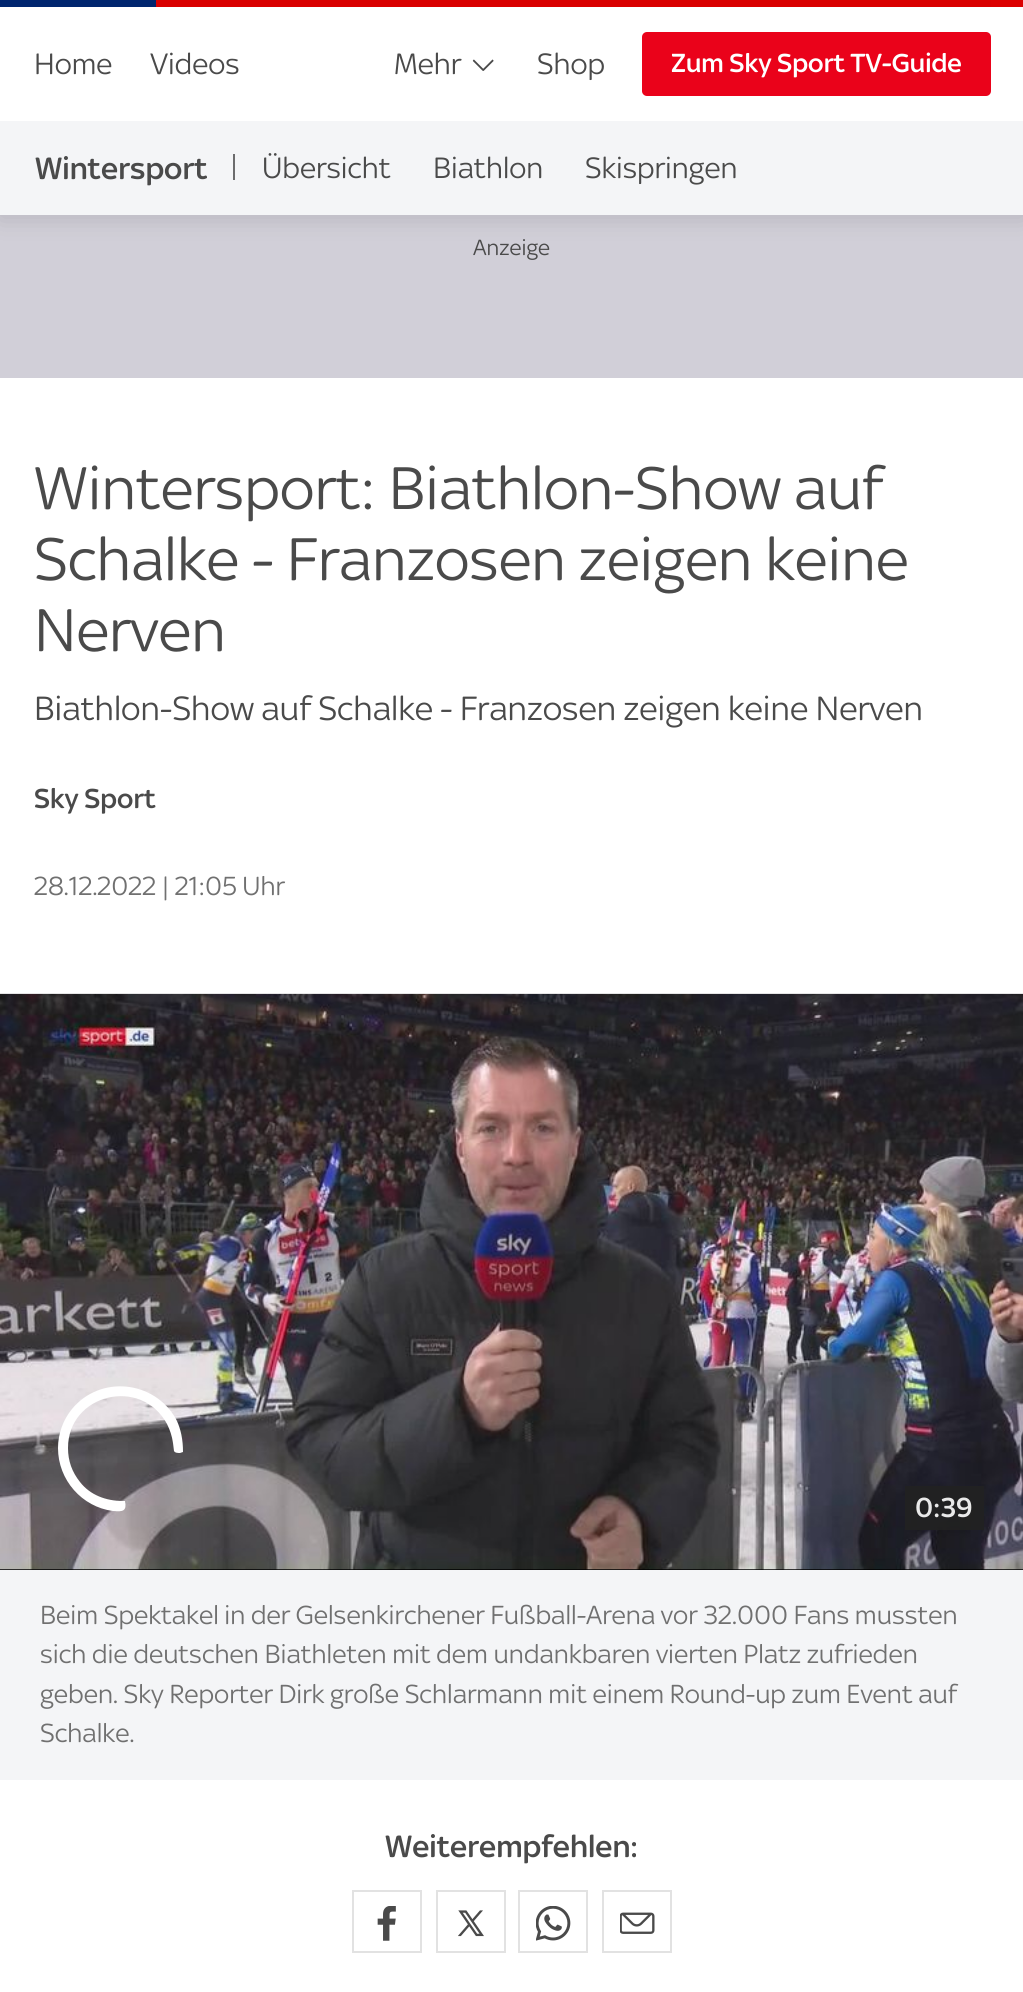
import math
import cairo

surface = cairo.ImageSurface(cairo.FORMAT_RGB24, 1023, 1992)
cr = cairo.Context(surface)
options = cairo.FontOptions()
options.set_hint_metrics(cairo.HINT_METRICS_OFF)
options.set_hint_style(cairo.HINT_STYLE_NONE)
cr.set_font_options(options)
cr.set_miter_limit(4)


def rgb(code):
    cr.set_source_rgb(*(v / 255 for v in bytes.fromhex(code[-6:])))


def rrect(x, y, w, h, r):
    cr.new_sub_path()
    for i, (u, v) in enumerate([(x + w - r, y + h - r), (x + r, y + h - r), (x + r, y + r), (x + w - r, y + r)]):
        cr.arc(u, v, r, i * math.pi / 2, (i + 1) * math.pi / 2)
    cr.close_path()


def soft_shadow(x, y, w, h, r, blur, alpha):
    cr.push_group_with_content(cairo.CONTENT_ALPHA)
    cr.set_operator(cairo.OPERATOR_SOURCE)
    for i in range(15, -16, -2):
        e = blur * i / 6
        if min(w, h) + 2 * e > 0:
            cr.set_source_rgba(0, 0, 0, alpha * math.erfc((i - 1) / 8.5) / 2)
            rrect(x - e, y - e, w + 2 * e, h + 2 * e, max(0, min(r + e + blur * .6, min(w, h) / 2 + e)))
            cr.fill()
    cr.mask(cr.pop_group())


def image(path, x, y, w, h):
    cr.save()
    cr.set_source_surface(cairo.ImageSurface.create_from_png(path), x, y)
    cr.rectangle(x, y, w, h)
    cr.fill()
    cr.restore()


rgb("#ffffff")
cr.paint()
rgb("#d1cfd8")
cr.rectangle(0, 215, 1023, 163)
cr.fill()
rgb("#000000")
soft_shadow(0, -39, 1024, 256, 0, 13, 0.14)
rgb("#002672")
cr.rectangle(0, 0, 33, 7)
cr.fill()
rgb("#e10000")
cr.rectangle(991, 0, 32, 7)
cr.fill()
gradient = cairo.LinearGradient(512, 121, 512, -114)
gradient.add_color_stop_rgba(0, 0, 0, 0, 0.1)
gradient.add_color_stop_rgba(0.66, 0, 0, 0, 0)
cr.set_source(gradient)
cr.rectangle(0, 0, 1023, 7)
cr.fill()
rgb("#002672")
cr.rectangle(33, 0, 123, 7)
cr.fill()
rgb("#e10000")
cr.rectangle(156, 0, 835, 7)
cr.fill()
gradient = cairo.LinearGradient(512, 120, 512, -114)
gradient.add_color_stop_rgba(0, 0, 0, 0, 0.1)
gradient.add_color_stop_rgba(0.76, 0, 0, 0, 0)
cr.set_source(gradient)
cr.rectangle(33, 0, 958, 7)
cr.fill()
rgb("#ffffff")
cr.rectangle(0, 7, 1023, 114)
cr.fill()
image("img/1.png", 472, 59, 22, 12)
rgb("#ea021a")
rrect(642, 32, 349, 64, 5)
cr.fill()
rgb("#f4f5f7")
cr.rectangle(0, 121, 1023, 94)
cr.fill()
rgb("#6c6c6d")
cr.rectangle(233, 154, 2, 26)
cr.fill()
image("img/2.png", 0, 993, 1023, 1)
rgb("#000000")
cr.rectangle(0, 1569, 1023, 1)
cr.fill()
image("img/3.png", 0, 993, 1023, 577)
rgb("#ffffff")
cr.new_path()
cr.move_to(180, 1453)
cr.curve_to(178, 1453, 175, 1453, 174, 1451)
cr.line_to(173, 1443)
cr.curve_to(172, 1436, 170, 1430, 167, 1424)
cr.curve_to(141, 1376, 68, 1394, 68, 1448)
cr.curve_to(68, 1461, 72, 1472, 80, 1482)
cr.curve_to(90, 1495, 106, 1501, 123, 1501)
cr.line_to(125, 1501)
cr.curve_to(127, 1511, 123, 1512, 113, 1511)
cr.curve_to(82, 1507, 58, 1480, 58, 1448)
cr.curve_to(58, 1434, 63, 1420, 72, 1409)
cr.curve_to(100, 1375, 154, 1380, 176, 1419)
cr.curve_to(181, 1429, 183, 1440, 183, 1452)
cr.close_path()
cr.fill()
cr.set_source_rgba(0.133, 0.133, 0.133, 0.9)
cr.rectangle(905, 1486, 79, 44)
cr.fill()
rgb("#f4f5f7")
cr.rectangle(0, 1570, 1023, 210)
cr.fill()
cr.rectangle(353, 1891, 68, 61)
rgb("#e2e2e2")
cr.stroke()
image("img/4.png", 377, 1906, 19, 35)
cr.rectangle(437, 1891, 68, 61)
cr.stroke()
image("img/5.png", 458, 1910, 26, 27)
cr.rectangle(519, 1891, 68, 61)
cr.stroke()
image("img/6.png", 536, 1906, 35, 35)
cr.rectangle(603, 1891, 68, 61)
cr.stroke()
image("img/7.png", 620, 1912, 35, 22)
cr.select_font_face("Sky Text")
cr.set_font_size(31.5)
rgb("#4a4a4a")
for x, y, s in [
    (34, 74, "Home"),
    (150, 74, "Videos"),
    (394, 74, "Mehr"),
    (537, 74, "Shop"),
]:
    cr.move_to(x, y)
    cr.show_text(s)
cr.select_font_face("Sky Text Medium")
cr.set_font_size(28)
rgb("#ffffff")
cr.move_to(671, 72)
cr.show_text("Zum Sky Sport TV-Guide")
cr.set_font_size(33)
rgb("#4a4a4a")
cr.move_to(35, 179)
cr.show_text("Wintersport")
cr.select_font_face("Sky Text")
cr.set_font_size(31.5)
for x, y, s in [
    (262, 178, "Übersicht"),
    (433, 178, "Biathlon"),
    (585, 178, "Skispringen"),
]:
    cr.move_to(x, y)
    cr.show_text(s)
cr.set_font_size(23.5)
cr.move_to(473, 255)
cr.show_text("Anzeige")
cr.set_font_size(64.25)
for x, y, s in [
    (34, 509, "Wintersport: Biathlon-Show auf"),
    (34, 580, "Schalke - Franzosen zeigen keine"),
    (34, 651, "Nerven"),
]:
    cr.move_to(x, y)
    cr.show_text(s)
cr.set_font_size(36)
cr.move_to(34, 720)
cr.show_text("Biathlon-Show auf Schalke - Franzosen zeigen keine Nerven")
cr.select_font_face("Sky Text Medium")
cr.set_font_size(29.5)
cr.move_to(34, 808)
cr.show_text("Sky Sport")
cr.select_font_face("Sky Text")
cr.set_font_size(28)
rgb("#707070")
cr.move_to(34, 895)
cr.show_text("28.12.2022 | 21:05 Uhr")
cr.select_font_face("Sky Text Medium")
cr.set_font_size(29.5)
rgb("#e9e9e9")
cr.move_to(915, 1517)
cr.show_text("0:39")
cr.select_font_face("Sky Text")
cr.set_font_size(28)
rgb("#707070")
for x, y, s in [
    (40, 1624, "Beim Spektakel in der Gelsenkirchener Fußball-Arena vor 32.000 Fans mussten"),
    (40, 1663, "sich die deutschen Biathleten mit dem undankbaren vierten Platz zufrieden"),
    (40, 1703, "geben. Sky Reporter Dirk große Schlarmann mit einem Round-up zum Event auf"),
    (40, 1742, "Schalke."),
]:
    cr.move_to(x, y)
    cr.show_text(s)
cr.select_font_face("Sky Text Medium")
cr.set_font_size(33)
rgb("#4a4a4a")
cr.move_to(385, 1857)
cr.show_text("Weiterempfehlen:")
surface.write_to_png("page.png")
